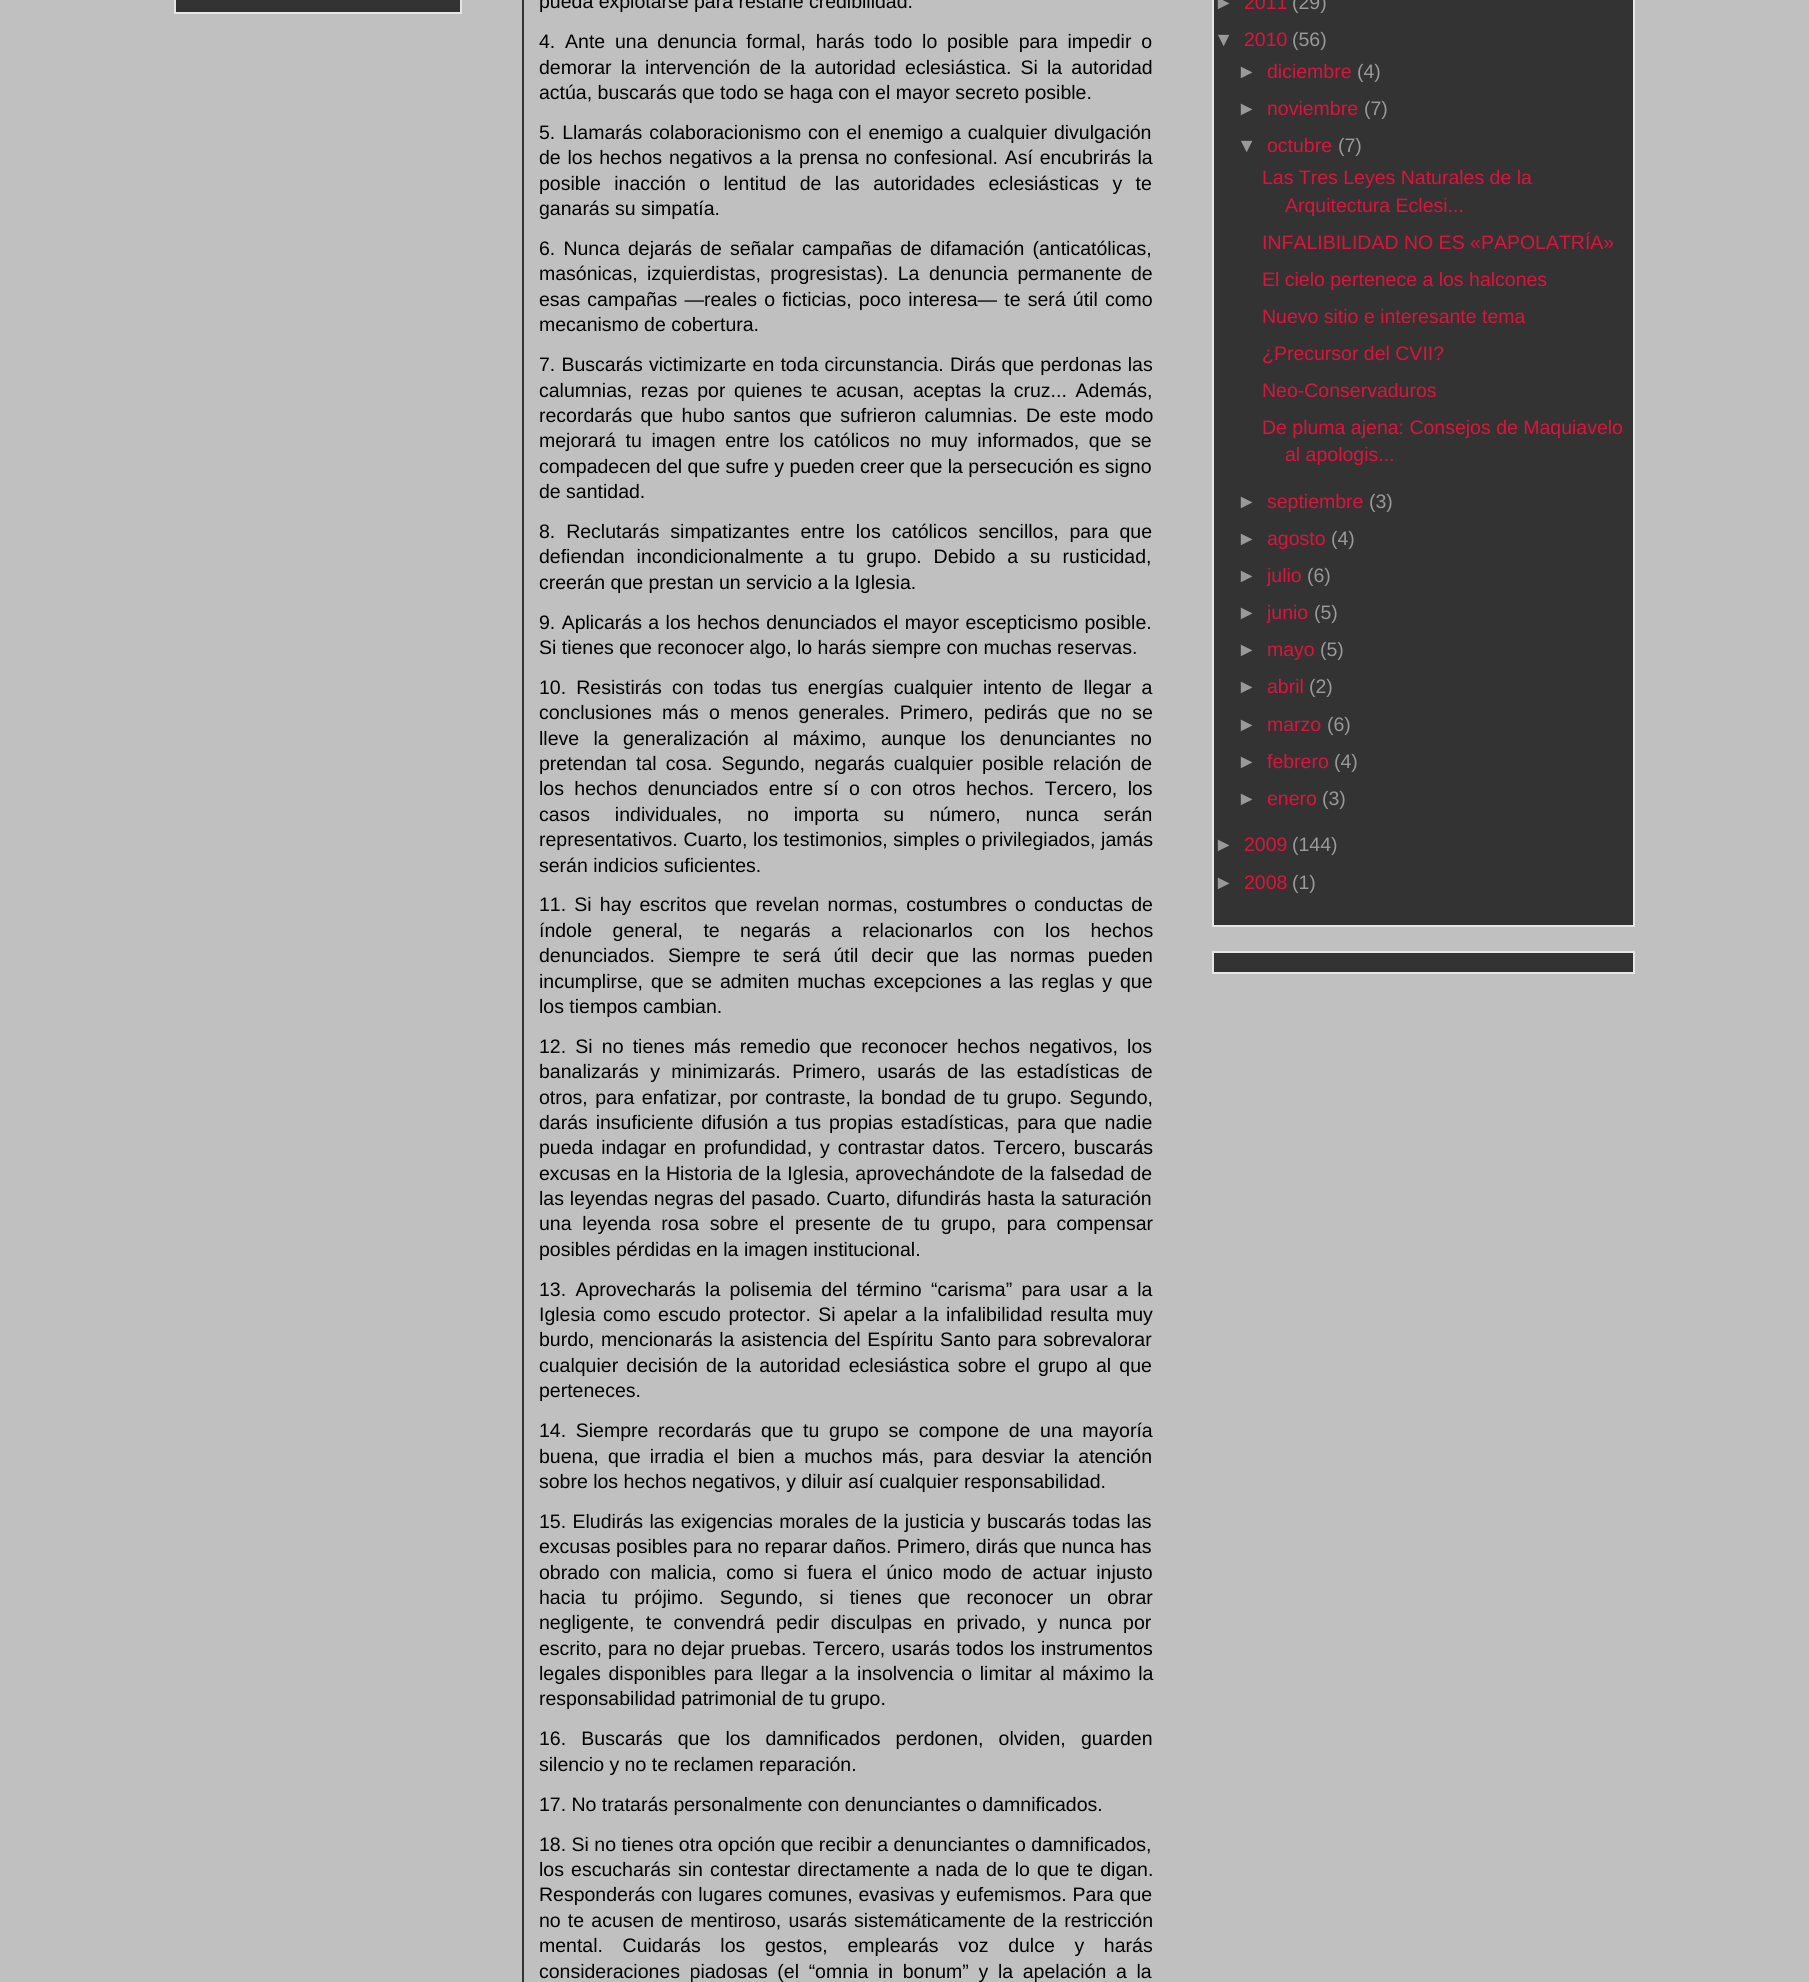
import math
import cairo

surface = cairo.ImageSurface(cairo.FORMAT_RGB24, 1809, 1982)
cr = cairo.Context(surface)
options = cairo.FontOptions()
options.set_hint_metrics(cairo.HINT_METRICS_OFF)
options.set_hint_style(cairo.HINT_STYLE_NONE)
cr.set_font_options(options)
cr.set_miter_limit(4)


def rgb(code):
    cr.set_source_rgb(*(v / 255 for v in bytes.fromhex(code[-6:])))


def tracked(x, y, s, letter, word):
    cr.move_to(x, y)
    for ch in s:
        cr.show_text(ch)
        cr.rel_move_to(letter + word * (ch == ' '), 0)


rgb("#c0c0c0")
cr.paint()
rgb("#333333")
cr.rectangle(175, -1, 286, 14)
cr.fill_preserve()
rgb("#e6e6e6")
cr.stroke()
rgb("#333333")
cr.rectangle(522, 0, 2, 1982)
cr.fill()
cr.rectangle(1213, -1, 421, 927)
cr.fill_preserve()
rgb("#e6e6e6")
cr.stroke()
rgb("#333333")
cr.rectangle(1213, 952, 421, 21)
cr.fill_preserve()
rgb("#e6e6e6")
cr.stroke()
cr.select_font_face("Liberation Sans")
cr.set_font_size(19.5)
rgb("#000000")
cr.move_to(539, 8)
cr.show_text("pueda explotarse para restarle credibilidad.")
tracked(539, 48, "4. Ante una denuncia formal, harás todo lo posible para impedir o", 0, 4.4)
tracked(539, 74, "demorar la intervención de la autoridad eclesiástica. Si la autoridad", 0, 3.75)
cr.move_to(539, 99)
cr.show_text("actúa, buscarás que todo se haga con el mayor secreto posible.")
tracked(539, 139, "5. Llamarás colaboracionismo con el enemigo a cualquier divulgación", 0, 1.5)
tracked(539, 164, "de los hechos negativos a la prensa no confesional. Así encubrirás la", 0, 1.4)
tracked(539, 190, "posible inacción o lentitud de las autoridades eclesiásticas y te", 0, 8)
cr.move_to(539, 215)
cr.show_text("ganarás su simpatía.")
tracked(539, 255, "6. Nunca dejarás de señalar campañas de difamación (anticatólicas,", 0, 2.75)
tracked(539, 280, "masónicas, izquierdistas, progresistas). La denuncia permanente de", 0, 4)
tracked(539, 306, "esas campañas —reales o ficticias, poco interesa— te será útil como", 0, 1.75)
cr.move_to(539, 331)
cr.show_text("mecanismo de cobertura.")
tracked(539, 371, "7. Buscarás victimizarte en toda circunstancia. Dirás que perdonas las", 0, 0.75)
tracked(539, 397, "calumnias, rezas por quienes te acusan, aceptas la cruz... Además,", 0, 3.25)
tracked(539, 422, "recordarás que hubo santos que sufrieron calumnias. De este modo", 0, 3)
tracked(539, 447, "mejorará tu imagen entre los católicos no muy informados, que se", 0, 4.25)
cr.move_to(539, 473)
cr.show_text("compadecen del que sufre y pueden creer que la persecución es signo")
cr.move_to(539, 498)
cr.show_text("de santidad.")
tracked(539, 538, "8. Reclutarás simpatizantes entre los católicos sencillos, para que", 0, 5.5)
tracked(539, 563, "defiendan incondicionalmente a tu grupo. Debido a su rusticidad,", 0, 6.5)
cr.move_to(539, 589)
cr.show_text("creerán que prestan un servicio a la Iglesia.")
tracked(539, 629, "9. Aplicarás a los hechos denunciados el mayor escepticismo posible.", 0, 1)
cr.move_to(539, 654)
cr.show_text("Si tienes que reconocer algo, lo harás siempre con muchas reservas.")
tracked(539, 694, "10. Resistirás con todas tus energías cualquier intento de llegar a", 0, 4.75)
tracked(539, 719, "conclusiones más o menos generales. Primero, pedirás que no se", 0, 4.75)
tracked(539, 745, "lleve la generalización al máximo, aunque los denunciantes no", 0, 9)
tracked(539, 770, "pretendan tal cosa. Segundo, negarás cualquier posible relación de", 0, 3.75)
tracked(539, 795, "los hechos denunciados entre sí o con otros hechos. Tercero, los", 0, 5)
tracked(539, 821, "casos individuales, no importa su número, nunca serán", 0, 19.5)
tracked(539, 846, "representativos. Cuarto, los testimonios, simples o privilegiados, jamás", 0, 0.25)
cr.move_to(539, 872)
cr.show_text("serán indicios suficientes.")
tracked(539, 911, "11. Si hay escritos que revelan normas, costumbres o conductas de", 0, 2.75)
tracked(539, 937, "índole general, te negarás a relacionarlos con los hechos", 0, 15)
tracked(539, 962, "denunciados. Siempre te será útil decir que las normas pueden", 0, 7.5)
tracked(539, 988, "incumplirse, que se admiten muchas excepciones a las reglas y que", 0, 2.5)
cr.move_to(539, 1013)
cr.show_text("los tiempos cambian.")
tracked(539, 1053, "12. Si no tienes más remedio que reconocer hechos negativos, los", 0, 3.75)
tracked(539, 1078, "banalizarás y minimizarás. Primero, usarás de las estadísticas de", 0, 6)
tracked(539, 1104, "otros, para enfatizar, por contraste, la bondad de tu grupo. Segundo,", 0, 2.1)
tracked(539, 1129, "darás insuficiente difusión a tus propias estadísticas, para que nadie", 0, 2.5)
tracked(539, 1154, "pueda indagar en profundidad, y contrastar datos. Tercero, buscarás", 0, 2.5)
tracked(539, 1180, "excusas en la Historia de la Iglesia, aprovechándote de la falsedad de", 0, 0.75)
tracked(539, 1205, "las leyendas negras del pasado. Cuarto, difundirás hasta la saturación", 0, 0.5)
tracked(539, 1230, "una leyenda rosa sobre el presente de tu grupo, para compensar", 0, 5.25)
cr.move_to(539, 1256)
cr.show_text("posibles pérdidas en la imagen institucional.")
tracked(539, 1296, "13. Aprovecharás la polisemia del término “carisma” para usar a la", 0, 3.9)
tracked(539, 1321, "Iglesia como escudo protector. Si apelar a la infalibilidad resulta muy", 0, 2.1)
tracked(539, 1346, "burdo, mencionarás la asistencia del Espíritu Santo para sobrevalorar", 0, 1.25)
tracked(539, 1372, "cualquier decisión de la autoridad eclesiástica sobre el grupo al que", 0, 2.75)
cr.move_to(539, 1397)
cr.show_text("perteneces.")
tracked(539, 1437, "14. Siempre recordarás que tu grupo se compone de una mayoría", 0, 4.25)
tracked(539, 1463, "buena, que irradia el bien a muchos más, para desviar la atención", 0, 3.9)
cr.move_to(539, 1488)
cr.show_text("sobre los hechos negativos, y diluir así cualquier responsabilidad.")
tracked(539, 1528, "15. Eludirás las exigencias morales de la justicia y buscarás todas las", 0, 1)
cr.move_to(539, 1553)
cr.show_text("excusas posibles para no reparar daños. Primero, dirás que nunca has")
tracked(539, 1579, "obrado con malicia, como si fuera el único modo de actuar injusto", 0, 4.25)
tracked(539, 1604, "hacia tu prójimo. Segundo, si tienes que reconocer un obrar", 0, 10.75)
tracked(539, 1629, "negligente, te convendrá pedir disculpas en privado, y nunca por", 0, 6)
tracked(539, 1655, "escrito, para no dejar pruebas. Tercero, usarás todos los instrumentos", 0, 0.75)
tracked(539, 1680, "legales disponibles para llegar a la insolvencia o limitar al máximo la", 0, 2.25)
cr.move_to(539, 1705)
cr.show_text("responsabilidad patrimonial de tu grupo.")
tracked(539, 1745, "16. Buscarás que los damnificados perdonen, olviden, guarden", 0, 9.75)
for x, y, s in [
    (539, 1771, "silencio y no te reclamen reparación."),
    (539, 1811, "17. No tratarás personalmente con denunciantes o damnificados."),
    (539, 1851, "18. Si no tienes otra opción que recibir a denunciantes o damnificados,"),
]:
    cr.move_to(x, y)
    cr.show_text(s)
tracked(539, 1876, "los escucharás sin contestar directamente a nada de lo que te digan.", 0, 1.75)
tracked(539, 1901, "Responderás con lugares comunes, evasivas y eufemismos. Para que", 0, 0.5)
tracked(539, 1927, "no te acusen de mentiroso, usarás sistemáticamente de la restricción", 0, 1.75)
tracked(539, 1952, "mental. Cuidarás los gestos, emplearás voz dulce y harás", 0, 14.25)
tracked(539, 1978, "consideraciones piadosas (el “omnia in bonum” y la apelación a la", 0, 4.25)
rgb("#999999")
cr.move_to(1214, 9)
cr.show_text("►")
rgb("#dc143c")
cr.move_to(1244, 9)
cr.show_text("2011")
rgb("#999999")
cr.move_to(1292, 9)
cr.show_text("(29)")
cr.move_to(1214, 46)
cr.show_text("▼")
rgb("#dc143c")
cr.move_to(1244, 46)
cr.show_text("2010")
rgb("#999999")
cr.move_to(1292, 46)
cr.show_text("(56)")
cr.move_to(1237, 78)
cr.show_text("►")
rgb("#dc143c")
cr.move_to(1267, 78)
cr.show_text("diciembre")
rgb("#999999")
cr.move_to(1357, 78)
cr.show_text("(4)")
cr.move_to(1237, 115)
cr.show_text("►")
rgb("#dc143c")
cr.move_to(1267, 115)
cr.show_text("noviembre")
rgb("#999999")
cr.move_to(1364, 115)
cr.show_text("(7)")
cr.move_to(1237, 152)
cr.show_text("▼")
rgb("#dc143c")
cr.move_to(1267, 152)
cr.show_text("octubre")
rgb("#999999")
cr.move_to(1338, 152)
cr.show_text("(7)")
rgb("#dc143c")
for x, y, s in [
    (1262, 184, "Las Tres Leyes Naturales de la"),
    (1285, 212, "Arquitectura Eclesi..."),
    (1262, 249, "INFALIBILIDAD NO ES «PAPOLATRÍA»"),
    (1262, 286, "El cielo pertenece a los halcones"),
    (1262, 323, "Nuevo sitio e interesante tema"),
    (1262, 360, "¿Precursor del CVII?"),
    (1262, 397, "Neo-Conservaduros"),
    (1262, 434, "De pluma ajena: Consejos de Maquiavelo"),
    (1285, 461, "al apologis..."),
]:
    cr.move_to(x, y)
    cr.show_text(s)
rgb("#999999")
cr.move_to(1237, 508)
cr.show_text("►")
rgb("#dc143c")
cr.move_to(1267, 508)
cr.show_text("septiembre")
rgb("#999999")
cr.move_to(1369, 508)
cr.show_text("(3)")
cr.move_to(1237, 545)
cr.show_text("►")
rgb("#dc143c")
cr.move_to(1267, 545)
cr.show_text("agosto")
rgb("#999999")
cr.move_to(1331, 545)
cr.show_text("(4)")
cr.move_to(1237, 582)
cr.show_text("►")
rgb("#dc143c")
cr.move_to(1267, 582)
cr.show_text("julio")
rgb("#999999")
cr.move_to(1307, 582)
cr.show_text("(6)")
cr.move_to(1237, 619)
cr.show_text("►")
rgb("#dc143c")
cr.move_to(1267, 619)
cr.show_text("junio")
rgb("#999999")
cr.move_to(1314, 619)
cr.show_text("(5)")
cr.move_to(1237, 656)
cr.show_text("►")
rgb("#dc143c")
cr.move_to(1267, 656)
cr.show_text("mayo")
rgb("#999999")
cr.move_to(1320, 656)
cr.show_text("(5)")
cr.move_to(1237, 693)
cr.show_text("►")
rgb("#dc143c")
cr.move_to(1267, 693)
cr.show_text("abril")
rgb("#999999")
cr.move_to(1309, 693)
cr.show_text("(2)")
cr.move_to(1237, 731)
cr.show_text("►")
rgb("#dc143c")
cr.move_to(1267, 731)
cr.show_text("marzo")
rgb("#999999")
cr.move_to(1327, 731)
cr.show_text("(6)")
cr.move_to(1237, 768)
cr.show_text("►")
rgb("#dc143c")
cr.move_to(1267, 768)
cr.show_text("febrero")
rgb("#999999")
cr.move_to(1334, 768)
cr.show_text("(4)")
cr.move_to(1237, 805)
cr.show_text("►")
rgb("#dc143c")
cr.move_to(1267, 805)
cr.show_text("enero")
rgb("#999999")
cr.move_to(1322, 805)
cr.show_text("(3)")
cr.move_to(1214, 851)
cr.show_text("►")
rgb("#dc143c")
cr.move_to(1244, 851)
cr.show_text("2009")
rgb("#999999")
cr.move_to(1292, 851)
cr.show_text("(144)")
cr.move_to(1214, 889)
cr.show_text("►")
rgb("#dc143c")
cr.move_to(1244, 889)
cr.show_text("2008")
rgb("#999999")
cr.move_to(1292, 889)
cr.show_text("(1)")
surface.write_to_png("page.png")
